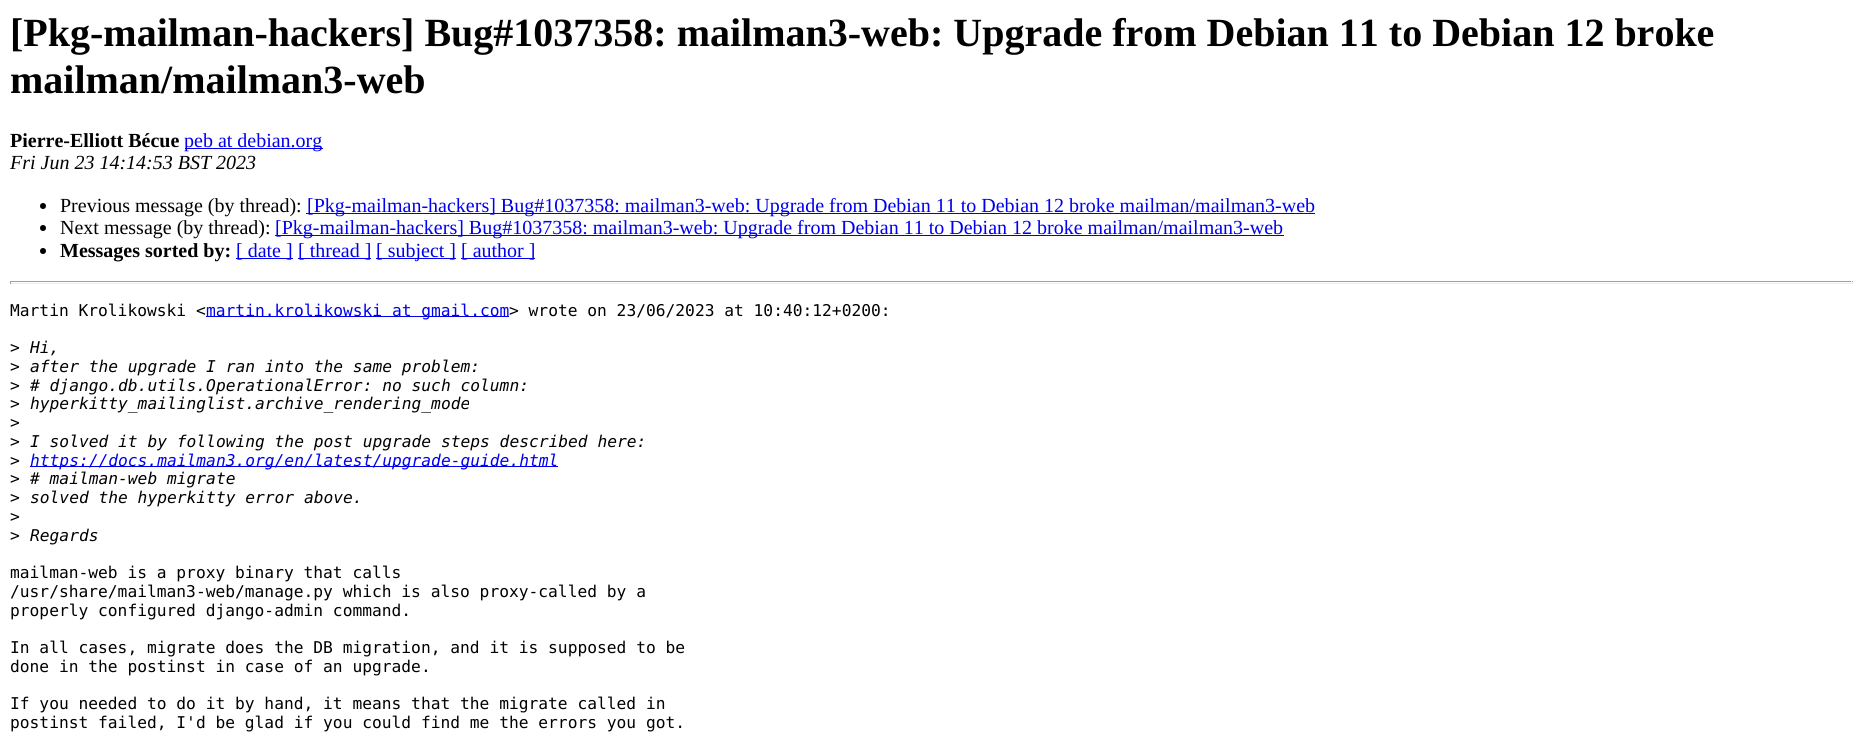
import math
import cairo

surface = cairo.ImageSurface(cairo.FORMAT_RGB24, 1862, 750)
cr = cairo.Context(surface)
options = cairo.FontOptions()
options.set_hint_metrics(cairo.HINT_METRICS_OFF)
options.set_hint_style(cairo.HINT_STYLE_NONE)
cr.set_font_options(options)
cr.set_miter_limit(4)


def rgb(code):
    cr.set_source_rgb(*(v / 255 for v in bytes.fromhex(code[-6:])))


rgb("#ffffff")
cr.paint()
rgb("#0000ee")
cr.rectangle(185, 148, 138, 1)
cr.fill()
rgb("#000000")
cr.arc(43, 206, 3, 0, 2 * math.pi)
cr.fill()
rgb("#0000ee")
cr.rectangle(306, 213, 1009, 1)
cr.fill()
rgb("#000000")
cr.arc(43, 228, 3, 0, 2 * math.pi)
cr.fill()
rgb("#0000ee")
cr.rectangle(275, 235, 1009, 1)
cr.fill()
rgb("#000000")
cr.arc(43, 251, 3, 0, 2 * math.pi)
cr.fill()
for x, y, w, h, color in [
    (236, 258, 57, 1, "#0000ee"),
    (298, 258, 73, 1, "#0000ee"),
    (376, 258, 80, 1, "#0000ee"),
    (461, 258, 74, 1, "#0000ee"),
    (10, 281, 1843, 1, "#9f9f9f"),
    (1851, 281, 1, 3, "#eeeeee"),
    (10, 283, 1843, 1, "#eeeeee"),
    (10, 281, 1, 3, "#9f9f9f"),
    (206, 316, 303, 1, "#0000ee"),
    (30, 466, 528, 1, "#0000ee"),
]:
    rgb(color)
    cr.rectangle(x, y, w, h)
    cr.fill()
cr.select_font_face("Liberation Serif", cairo.FONT_SLANT_NORMAL, cairo.FONT_WEIGHT_BOLD)
cr.set_font_size(40)
rgb("#000000")
cr.move_to(10, 46)
cr.show_text("[Pkg-mailman-hackers] Bug#1037358: mailman3-web: Upgrade from Debian 11 to Debian 12 broke")
cr.move_to(10, 93)
cr.show_text("mailman/mailman3-web")
cr.set_font_size(20)
cr.move_to(10, 147)
cr.show_text("Pierre-Elliott Bécue")
cr.select_font_face("Liberation Serif")
rgb("#0000ee")
cr.move_to(184, 147)
cr.show_text("peb at debian.org")
cr.select_font_face("Liberation Serif", cairo.FONT_SLANT_ITALIC)
rgb("#000000")
cr.move_to(10, 169)
cr.show_text("Fri Jun 23 14:14:53 BST 2023")
cr.select_font_face("Liberation Serif")
cr.move_to(60, 212)
cr.show_text("Previous message (by thread):")
rgb("#0000ee")
cr.move_to(307, 212)
cr.show_text("[Pkg-mailman-hackers] Bug#1037358: mailman3-web: Upgrade from Debian 11 to Debian 12 broke mailman/mailman3-web")
rgb("#000000")
cr.move_to(60, 234)
cr.show_text("Next message (by thread):")
rgb("#0000ee")
cr.move_to(275, 234)
cr.show_text("[Pkg-mailman-hackers] Bug#1037358: mailman3-web: Upgrade from Debian 11 to Debian 12 broke mailman/mailman3-web")
cr.select_font_face("Liberation Serif", cairo.FONT_SLANT_NORMAL, cairo.FONT_WEIGHT_BOLD)
rgb("#000000")
cr.move_to(60, 257)
cr.show_text("Messages sorted by:")
cr.select_font_face("Liberation Serif")
rgb("#0000ee")
for x, y, s in [
    (236, 257, "[ date ]"),
    (298, 257, "[ thread ]"),
    (376, 257, "[ subject ]"),
    (461, 257, "[ author ]"),
]:
    cr.move_to(x, y)
    cr.show_text(s)
cr.select_font_face("DejaVu Sans Mono")
cr.set_font_size(16.25)
rgb("#000000")
cr.move_to(10, 316)
cr.show_text("Martin Krolikowski <")
rgb("#0000ee")
cr.move_to(206, 316)
cr.show_text("martin.krolikowski at gmail.com")
rgb("#000000")
cr.move_to(509, 316)
cr.show_text("> wrote on 23/06/2023 at 10:40:12+0200:")
cr.move_to(10, 353)
cr.show_text(">")
cr.select_font_face("DejaVu Sans Mono", cairo.FONT_SLANT_ITALIC)
cr.move_to(30, 353)
cr.show_text("Hi,")
cr.select_font_face("DejaVu Sans Mono")
cr.move_to(10, 372)
cr.show_text(">")
cr.select_font_face("DejaVu Sans Mono", cairo.FONT_SLANT_ITALIC)
cr.move_to(30, 372)
cr.show_text("after the upgrade I ran into the same problem:")
cr.select_font_face("DejaVu Sans Mono")
cr.move_to(10, 391)
cr.show_text(">")
cr.select_font_face("DejaVu Sans Mono", cairo.FONT_SLANT_ITALIC)
cr.move_to(30, 391)
cr.show_text("# django.db.utils.OperationalError: no such column:")
cr.select_font_face("DejaVu Sans Mono")
cr.move_to(10, 409)
cr.show_text(">")
cr.select_font_face("DejaVu Sans Mono", cairo.FONT_SLANT_ITALIC)
cr.move_to(30, 409)
cr.show_text("hyperkitty_mailinglist.archive_rendering_mode")
cr.select_font_face("DejaVu Sans Mono")
cr.move_to(10, 428)
cr.show_text(">")
cr.move_to(10, 447)
cr.show_text(">")
cr.select_font_face("DejaVu Sans Mono", cairo.FONT_SLANT_ITALIC)
cr.move_to(30, 447)
cr.show_text("I solved it by following the post upgrade steps described here:")
cr.select_font_face("DejaVu Sans Mono")
cr.move_to(10, 466)
cr.show_text(">")
cr.select_font_face("DejaVu Sans Mono", cairo.FONT_SLANT_ITALIC)
rgb("#0000ee")
cr.move_to(30, 466)
cr.show_text("https://docs.mailman3.org/en/latest/upgrade-guide.html")
cr.select_font_face("DejaVu Sans Mono")
rgb("#000000")
cr.move_to(10, 484)
cr.show_text(">")
cr.select_font_face("DejaVu Sans Mono", cairo.FONT_SLANT_ITALIC)
cr.move_to(30, 484)
cr.show_text("# mailman-web migrate")
cr.select_font_face("DejaVu Sans Mono")
cr.move_to(10, 503)
cr.show_text(">")
cr.select_font_face("DejaVu Sans Mono", cairo.FONT_SLANT_ITALIC)
cr.move_to(30, 503)
cr.show_text("solved the hyperkitty error above.")
cr.select_font_face("DejaVu Sans Mono")
cr.move_to(10, 522)
cr.show_text(">")
cr.move_to(10, 541)
cr.show_text(">")
cr.select_font_face("DejaVu Sans Mono", cairo.FONT_SLANT_ITALIC)
cr.move_to(30, 541)
cr.show_text("Regards")
cr.select_font_face("DejaVu Sans Mono")
for x, y, s in [
    (10, 578, "mailman-web is a proxy binary that calls"),
    (10, 597, "/usr/share/mailman3-web/manage.py which is also proxy-called by a"),
    (10, 616, "properly configured django-admin command."),
    (10, 653, "In all cases, migrate does the DB migration, and it is supposed to be"),
    (10, 672, "done in the postinst in case of an upgrade."),
    (10, 709, "If you needed to do it by hand, it means that the migrate called in"),
    (10, 728, "postinst failed, I'd be glad if you could find me the errors you got."),
]:
    cr.move_to(x, y)
    cr.show_text(s)
surface.write_to_png("page.png")
